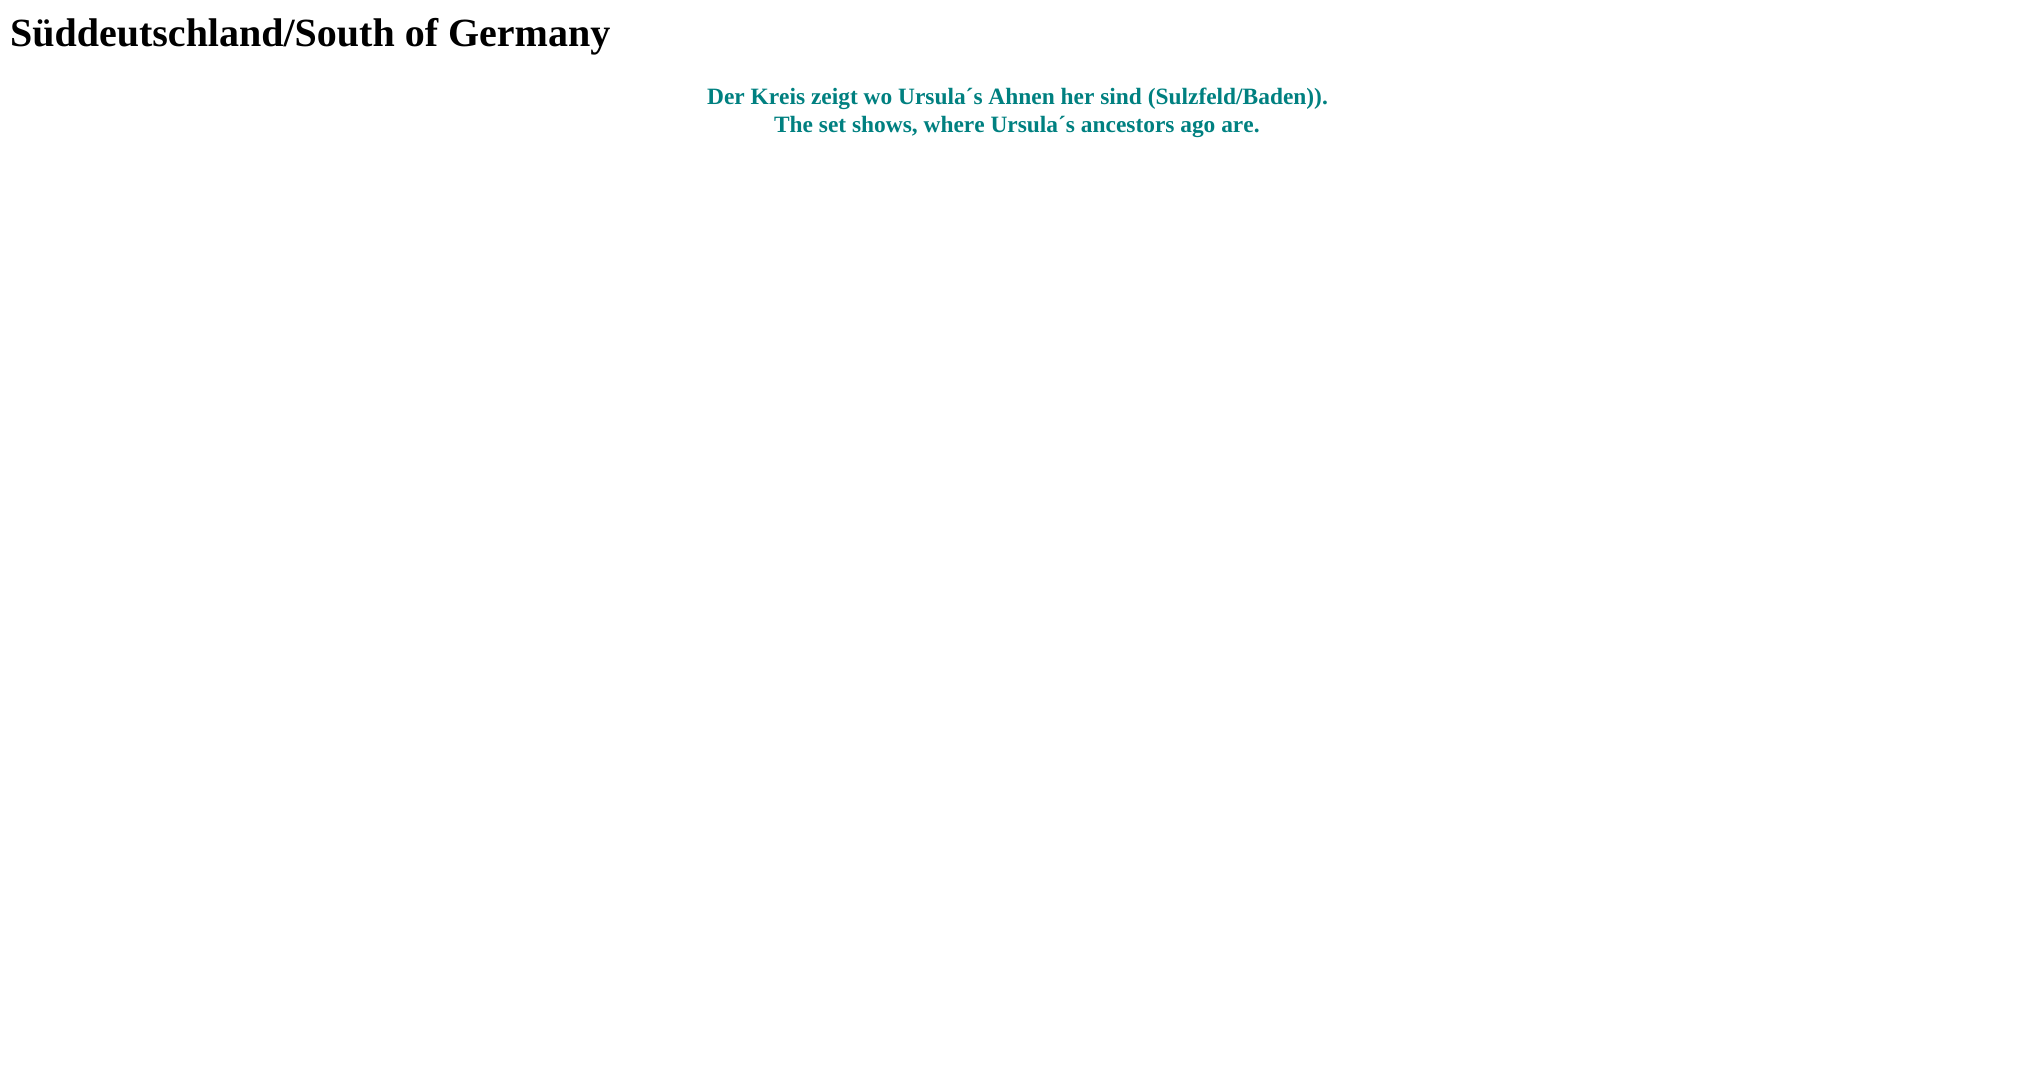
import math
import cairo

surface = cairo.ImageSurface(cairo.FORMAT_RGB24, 2033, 1077)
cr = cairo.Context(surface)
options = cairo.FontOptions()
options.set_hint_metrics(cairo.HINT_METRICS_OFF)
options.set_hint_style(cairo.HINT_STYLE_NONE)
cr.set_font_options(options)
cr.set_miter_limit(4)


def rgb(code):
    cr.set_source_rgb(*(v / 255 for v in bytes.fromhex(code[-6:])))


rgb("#ffffff")
cr.paint()
cr.select_font_face("Liberation Serif", cairo.FONT_SLANT_NORMAL, cairo.FONT_WEIGHT_BOLD)
cr.set_font_size(40)
rgb("#000000")
cr.move_to(10, 46)
cr.show_text("Süddeutschland/South of Germany")
cr.set_font_size(23.4)
rgb("#008080")
cr.move_to(707, 104)
cr.show_text("Der Kreis zeigt wo Ursula´s Ahnen her sind (Sulzfeld/Baden)).")
cr.move_to(774, 132)
cr.show_text("The set shows, where Ursula´s ancestors ago are.")
surface.write_to_png("page.png")
